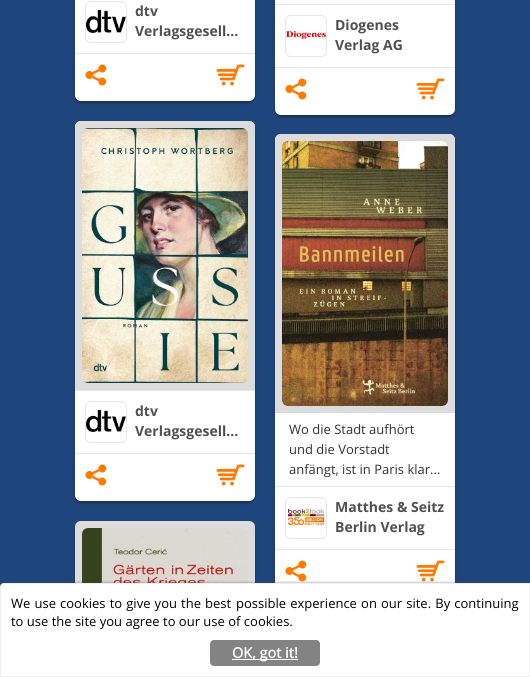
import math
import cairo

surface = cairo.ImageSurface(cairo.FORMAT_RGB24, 530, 677)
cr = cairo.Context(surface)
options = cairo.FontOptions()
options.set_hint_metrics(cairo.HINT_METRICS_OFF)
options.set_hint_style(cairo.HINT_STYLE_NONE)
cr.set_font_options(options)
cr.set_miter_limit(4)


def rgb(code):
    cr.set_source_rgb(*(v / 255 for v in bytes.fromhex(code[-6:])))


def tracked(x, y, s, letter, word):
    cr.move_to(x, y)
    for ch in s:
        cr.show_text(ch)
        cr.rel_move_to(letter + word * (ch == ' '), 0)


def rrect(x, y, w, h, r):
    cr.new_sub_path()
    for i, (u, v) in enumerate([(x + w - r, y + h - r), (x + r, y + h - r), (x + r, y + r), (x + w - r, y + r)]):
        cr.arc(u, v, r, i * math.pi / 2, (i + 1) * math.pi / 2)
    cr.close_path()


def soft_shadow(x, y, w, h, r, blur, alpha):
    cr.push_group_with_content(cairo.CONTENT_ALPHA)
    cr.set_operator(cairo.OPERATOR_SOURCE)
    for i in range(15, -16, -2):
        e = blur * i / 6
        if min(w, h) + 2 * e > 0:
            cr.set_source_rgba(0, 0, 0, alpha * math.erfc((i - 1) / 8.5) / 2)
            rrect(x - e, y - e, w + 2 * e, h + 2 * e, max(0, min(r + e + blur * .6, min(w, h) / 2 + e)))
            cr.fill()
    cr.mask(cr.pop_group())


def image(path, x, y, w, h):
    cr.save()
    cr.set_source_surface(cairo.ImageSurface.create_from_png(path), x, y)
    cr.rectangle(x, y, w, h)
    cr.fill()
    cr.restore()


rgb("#1e457c")
cr.paint()
rgb("#000000")
soft_shadow(75, -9, 180, 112, 6, 1, 0.3)
rgb("#ffffff")
rrect(75, -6, 180, 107, 6)
cr.fill()
rrect(85.5, 1.5, 41, 41, 5.5)
rgb("#e7e7e7")
cr.set_line_width(1)
cr.stroke()
image("img/1.png", 86, 10, 40, 23)
cr.rectangle(75, 53, 180, 1)
cr.fill()
image("img/2.png", 85, 64, 22, 22)
image("img/3.png", 216, 64, 29, 22)
rgb("#000000")
soft_shadow(275, -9, 180, 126, 6, 1, 0.3)
rgb("#ffffff")
rrect(275, -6, 180, 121, 6)
cr.fill()
rgb("#e7e7e7")
cr.rectangle(275, 4, 180, 1)
cr.fill()
rrect(285.5, 15.5, 41, 41, 5.5)
cr.stroke()
image("img/4.png", 286, 31, 40, 8)
cr.rectangle(275, 67, 180, 1)
cr.fill()
image("img/2.png", 285, 78, 22, 22)
image("img/3.png", 416, 78, 29, 22)
rgb("#000000")
soft_shadow(75, 123, 180, 380, 6, 1, 0.3)
rgb("#ffffff")
rrect(75, 121, 180, 380, 6)
cr.fill()
rgb("#dcdcdc")
cr.new_path()
cr.move_to(81, 121)
cr.line_to(249, 121)
cr.curve_to(252.5, 121, 255, 123.5, 255, 127)
cr.line_to(255, 390)
cr.line_to(75, 390)
cr.line_to(75, 127)
cr.curve_to(75, 123.5, 77.5, 121, 81, 121)
cr.close_path()
cr.fill()
image("img/5.png", 82, 128, 166, 255)
rgb("#e7e7e7")
cr.rectangle(75, 390, 180, 1)
cr.fill()
rrect(85.5, 401.5, 41, 41, 5.5)
cr.stroke()
image("img/6.png", 86, 410, 40, 22)
cr.rectangle(75, 453, 180, 1)
cr.fill()
image("img/2.png", 85, 464, 22, 22)
image("img/3.png", 216, 464, 29, 22)
rgb("#000000")
soft_shadow(275, 136, 180, 463, 6, 1, 0.3)
rgb("#ffffff")
rrect(275, 134, 180, 463, 6)
cr.fill()
rgb("#dcdcdc")
cr.new_path()
cr.move_to(281, 134)
cr.line_to(449, 134)
cr.curve_to(452.5, 134, 455, 136.5, 455, 140)
cr.line_to(455, 413)
cr.line_to(275, 413)
cr.line_to(275, 140)
cr.curve_to(275, 136.5, 277.5, 134, 281, 134)
cr.close_path()
cr.fill()
image("img/7.png", 282, 141, 166, 265)
rgb("#e7e7e7")
cr.rectangle(275, 486, 180, 1)
cr.fill()
rrect(285.5, 497.5, 41, 41, 5.5)
cr.stroke()
image("img/8.png", 287, 508, 38, 18)
cr.rectangle(275, 549, 180, 1)
cr.fill()
image("img/2.png", 285, 560, 22, 22)
image("img/3.png", 416, 560, 29, 22)
rgb("#000000")
soft_shadow(75, 523, 180, 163, 6, 1, 0.3)
rgb("#dcdcdc")
cr.new_path()
cr.move_to(81, 521)
cr.line_to(249, 521)
cr.curve_to(252.5, 521, 255, 523.5, 255, 527)
cr.line_to(255, 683)
cr.line_to(75, 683)
cr.line_to(75, 527)
cr.curve_to(75, 523.5, 77.5, 521, 81, 521)
cr.close_path()
cr.fill()
image("img/9.png", 82, 528, 166, 55)
rgb("#444444")
soft_shadow(-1, 582, 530, 94, 4, 1, 0.3)
rgb("#ffffff")
cr.new_path()
cr.move_to(4, 583.5)
cr.line_to(529.5, 583.5)
cr.line_to(529.5, 676.5)
cr.line_to(0.5, 676.5)
cr.line_to(0.5, 587)
cr.curve_to(0.5, 585, 2, 583.5, 4, 583.5)
cr.close_path()
cr.fill_preserve()
rgb("#eeeeee")
cr.stroke()
rgb("#838383")
rrect(210, 640, 110, 26, 4)
cr.fill()
rgb("#ffffff")
cr.rectangle(232, 659, 66, 1)
cr.fill()
cr.select_font_face("Open Sans", cairo.FONT_SLANT_NORMAL, cairo.FONT_WEIGHT_BOLD)
cr.set_font_size(14)
rgb("#505050")
for x, y, s in [
    (135, 16, "dtv"),
    (135, 36, "Verlagsgesell…"),
    (335, 30, "Diogenes"),
    (335, 50, "Verlag AG"),
    (135, 416, "dtv"),
    (135, 436, "Verlagsgesell…"),
]:
    cr.move_to(x, y)
    cr.show_text(s)
cr.select_font_face("Open Sans")
cr.set_font_size(13)
rgb("#333333")
for x, y, s in [
    (289, 434, "Wo die Stadt aufhört"),
    (289, 454, "und die Vorstadt"),
    (289, 474, "anfängt, ist in Paris klar..."),
]:
    cr.move_to(x, y)
    cr.show_text(s)
cr.select_font_face("Open Sans", cairo.FONT_SLANT_NORMAL, cairo.FONT_WEIGHT_BOLD)
cr.set_font_size(14)
rgb("#505050")
cr.move_to(335, 512)
cr.show_text("Matthes & Seitz")
cr.move_to(335, 532)
cr.show_text("Berlin Verlag")
cr.select_font_face("Open Sans")
cr.set_font_size(13)
rgb("#000000")
tracked(11, 608, "We use cookies to give you the best", 0, 0.75)
tracked(236, 608, "possible experience on our site. By continuing", 0, 0.75)
cr.move_to(11, 626)
cr.show_text("to use the site you agree to our use of cookies.")
cr.select_font_face("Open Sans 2", cairo.FONT_SLANT_NORMAL, cairo.FONT_WEIGHT_BOLD)
cr.set_font_size(14.5)
rgb("#ffffff")
cr.move_to(232, 658)
cr.show_text("OK, got it!")
surface.write_to_png("page.png")
